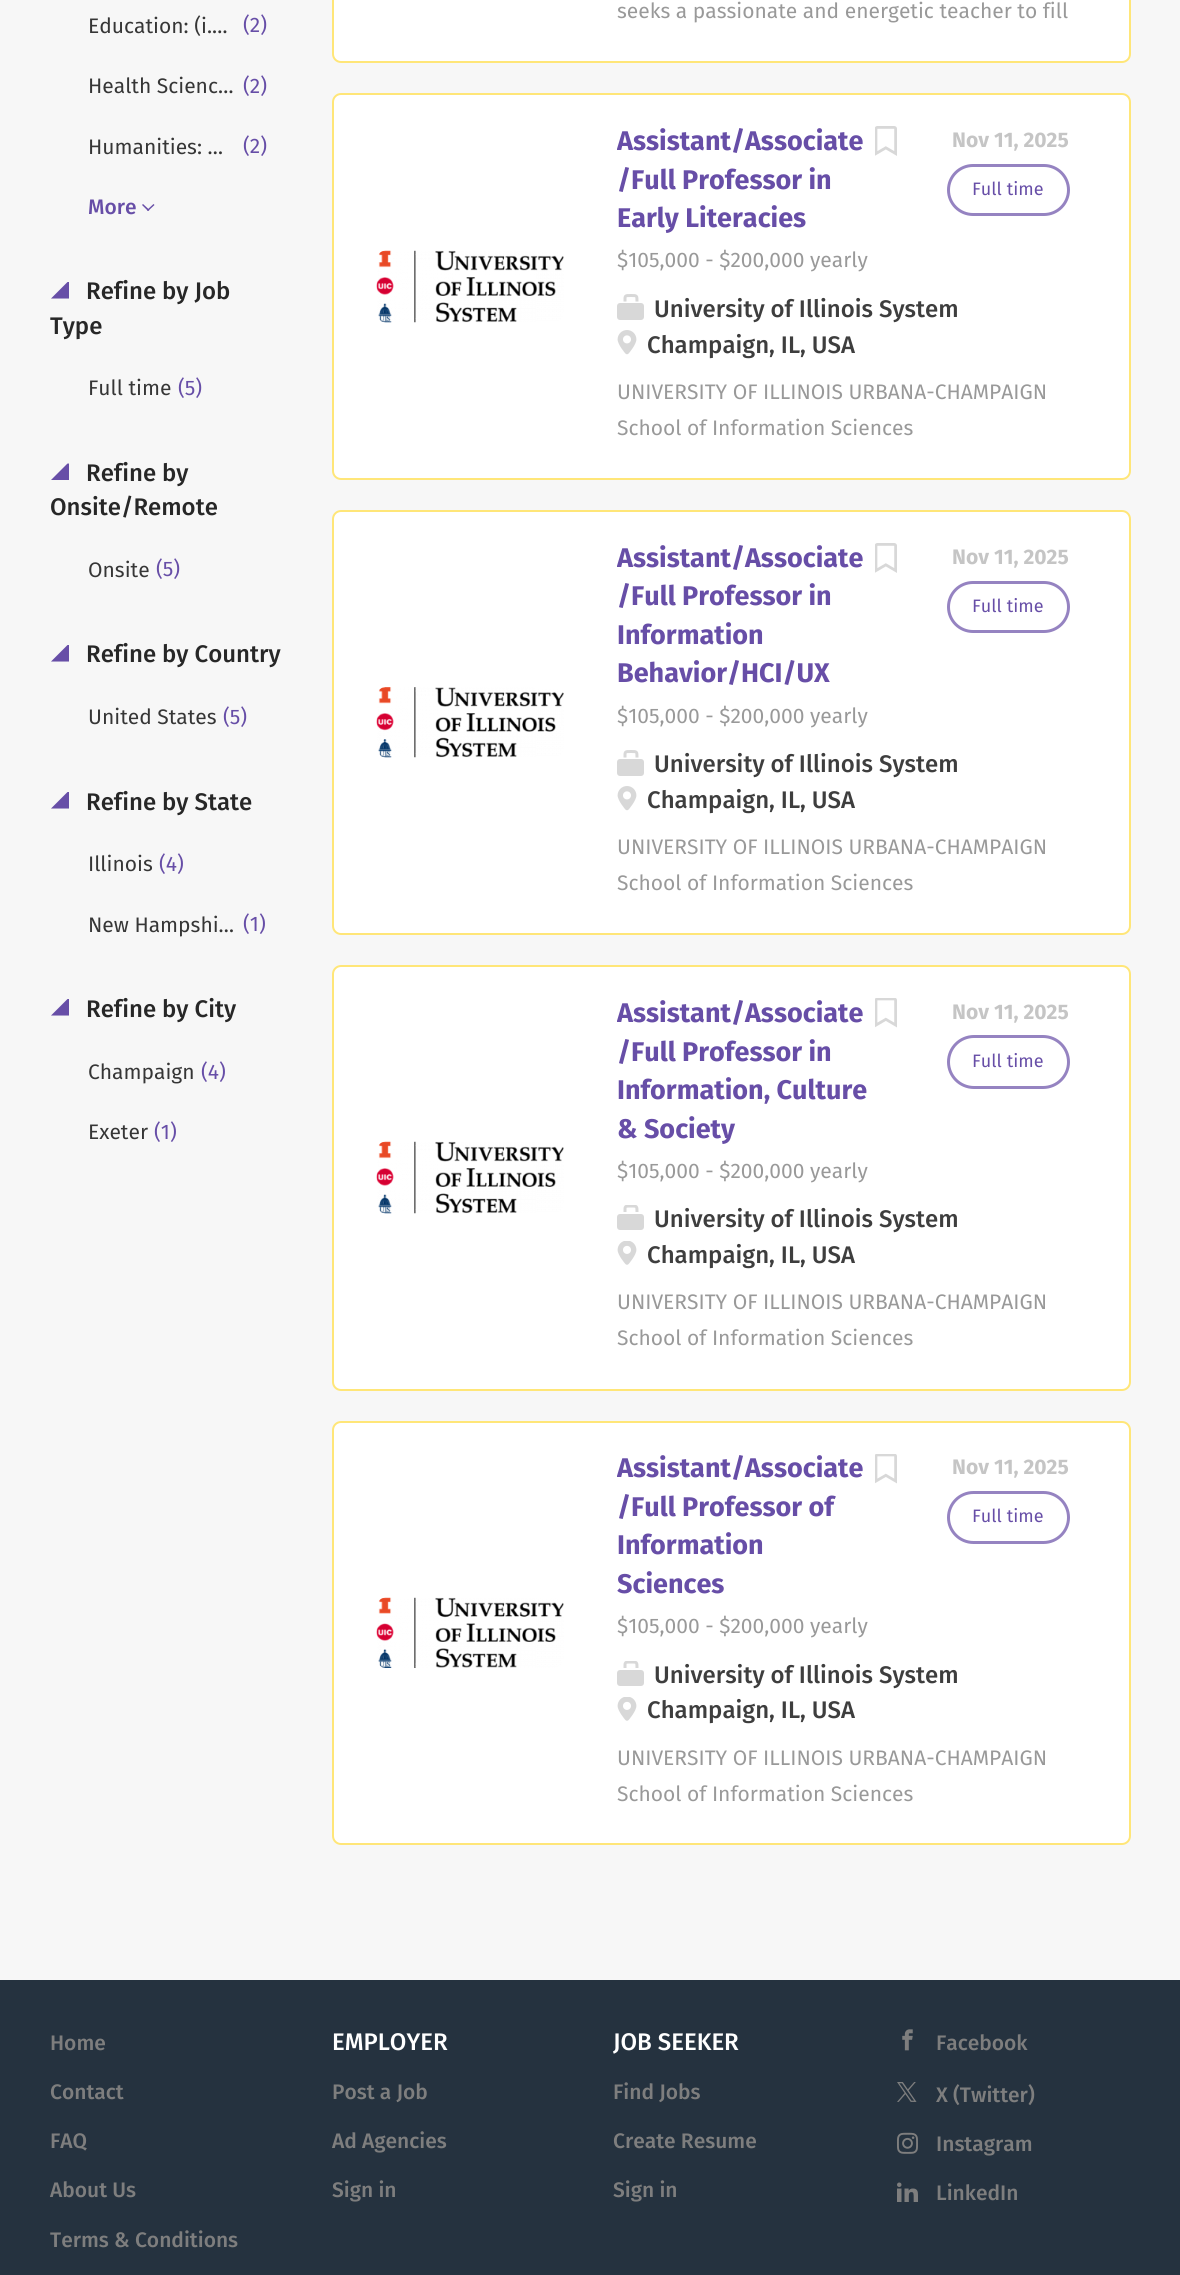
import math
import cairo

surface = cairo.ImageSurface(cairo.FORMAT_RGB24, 1180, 2275)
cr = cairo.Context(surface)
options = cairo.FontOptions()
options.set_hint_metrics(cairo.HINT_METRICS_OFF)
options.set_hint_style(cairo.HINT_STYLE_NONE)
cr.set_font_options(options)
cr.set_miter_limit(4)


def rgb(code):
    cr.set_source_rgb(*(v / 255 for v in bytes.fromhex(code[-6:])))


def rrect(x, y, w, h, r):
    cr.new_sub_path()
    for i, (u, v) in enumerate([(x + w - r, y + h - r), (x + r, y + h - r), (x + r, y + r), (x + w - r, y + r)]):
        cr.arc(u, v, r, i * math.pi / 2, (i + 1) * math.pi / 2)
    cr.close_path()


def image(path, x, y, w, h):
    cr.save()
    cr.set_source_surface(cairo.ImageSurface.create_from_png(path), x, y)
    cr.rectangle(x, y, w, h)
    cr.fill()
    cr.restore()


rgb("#f7f7f7")
cr.paint()
rgb("#674ea7")
cr.new_path()
cr.move_to(154.5, 205)
cr.line_to(148, 211)
cr.line_to(147, 210)
cr.line_to(153.5, 204)
cr.close_path()
cr.fill()
cr.new_path()
cr.move_to(149.5, 210)
cr.line_to(148, 211)
cr.line_to(142, 205)
cr.line_to(143, 204)
cr.close_path()
cr.fill()
cr.new_path()
cr.move_to(69, 298.5)
cr.line_to(51, 298.5)
cr.line_to(67.5, 282)
cr.line_to(69, 282)
cr.close_path()
cr.fill()
cr.new_path()
cr.move_to(69, 480)
cr.line_to(51, 480)
cr.line_to(67.5, 463.5)
cr.line_to(69, 463.5)
cr.close_path()
cr.fill()
cr.new_path()
cr.move_to(69, 661.5)
cr.line_to(51, 661.5)
cr.line_to(67.5, 645)
cr.line_to(69, 645)
cr.close_path()
cr.fill()
cr.new_path()
cr.move_to(69, 808.5)
cr.line_to(51, 808.5)
cr.line_to(67.5, 792)
cr.line_to(69, 792)
cr.close_path()
cr.fill()
cr.new_path()
cr.move_to(69, 1015.5)
cr.line_to(51, 1015.5)
cr.line_to(67.5, 999)
cr.line_to(69, 999)
cr.close_path()
cr.fill()
rgb("#ffffff")
rrect(333, -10, 797, 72, 8)
cr.fill_preserve()
rgb("#ffe678")
cr.stroke()
rgb("#ffffff")
rrect(333, 94, 797, 385, 8)
cr.fill_preserve()
rgb("#ffe678")
cr.stroke()
image("img/1.png", 376, 250, 188, 73)
image("img/2.png", 875, 126, 22, 30)
rrect(948.5, 165.5, 120, 49, 24.5)
rgb("#9583c1")
cr.set_line_width(3)
cr.stroke()
rgb("#d8d8d8")
rrect(617, 303, 27, 17, 3)
cr.fill()
cr.new_path()
cr.move_to(625, 301.5)
cr.curve_to(625, 295.5, 624.5, 295.5, 631, 295.5)
cr.curve_to(637, 295.5, 637, 295.5, 637, 301.5)
cr.stroke()
image("img/3.png", 617, 330, 20, 25)
rgb("#ffffff")
rrect(333, 511, 797, 423, 8)
cr.fill_preserve()
rgb("#ffe678")
cr.set_line_width(2)
cr.stroke()
image("img/4.png", 376, 687, 188, 71)
image("img/2.png", 875, 543, 22, 30)
rrect(948.5, 582.5, 120, 49, 24.5)
rgb("#9583c1")
cr.set_line_width(3)
cr.stroke()
rgb("#d8d8d8")
rrect(617, 759, 27, 17, 3)
cr.fill()
cr.new_path()
cr.move_to(625, 757.5)
cr.curve_to(625, 751.5, 624.5, 751.5, 631, 751.5)
cr.curve_to(637, 751.5, 637, 751.5, 637, 757.5)
cr.stroke()
image("img/3.png", 617, 786, 20, 25)
rgb("#ffffff")
rrect(333, 966, 797, 424, 8)
cr.fill_preserve()
rgb("#ffe678")
cr.set_line_width(2)
cr.stroke()
image("img/1.png", 376, 1141, 188, 73)
image("img/5.png", 875, 998, 22, 30)
rrect(948.5, 1036.5, 120, 51, 25.5)
rgb("#9583c1")
cr.set_line_width(3)
cr.stroke()
rgb("#d8d8d8")
rrect(617, 1214, 27, 16, 3)
cr.fill()
cr.save()
cr.rectangle(617, 1205, 28, 25)
cr.clip()
cr.new_path()
cr.move_to(625, 1212)
cr.curve_to(625, 1206, 624.5, 1206, 631, 1206)
cr.curve_to(637, 1206, 637, 1206, 637, 1212)
cr.stroke()
cr.restore()
image("img/6.png", 617, 1241, 20, 24)
rgb("#ffffff")
rrect(333, 1422, 797, 422, 8)
cr.fill_preserve()
rgb("#ffe678")
cr.set_line_width(2)
cr.stroke()
image("img/7.png", 376, 1597, 188, 71)
image("img/5.png", 875, 1454, 22, 30)
rrect(948.5, 1492.5, 120, 50, 25)
rgb("#9583c1")
cr.set_line_width(3)
cr.stroke()
rgb("#d8d8d8")
rrect(617, 1670, 27, 16, 3)
cr.fill()
cr.save()
cr.rectangle(617, 1661, 28, 25)
cr.clip()
cr.new_path()
cr.move_to(625, 1668)
cr.curve_to(625, 1662, 624.5, 1662, 631, 1662)
cr.curve_to(637, 1662, 637, 1662, 637, 1668)
cr.stroke()
cr.restore()
image("img/6.png", 617, 1697, 20, 24)
rgb("#25323f")
cr.rectangle(0, 1980, 1180, 295)
cr.fill()
image("img/8.png", 902, 2029, 11, 22)
image("img/9.png", 897, 2082, 20, 20)
image("img/10.png", 897, 2132, 21, 22)
image("img/11.png", 897, 2182, 21, 20)
cr.select_font_face("Fira Sans")
cr.set_font_size(21)
rgb("#363636")
cr.move_to(88, 33)
cr.show_text("Education: (i.…")
rgb("#674ea7")
cr.move_to(243, 32)
cr.show_text("(2)")
rgb("#363636")
cr.move_to(88, 93)
cr.show_text("Health Scienc…")
rgb("#674ea7")
cr.move_to(243, 93)
cr.show_text("(2)")
rgb("#363636")
cr.move_to(88, 154)
cr.show_text("Humanities: …")
rgb("#674ea7")
cr.move_to(243, 153)
cr.show_text("(2)")
cr.select_font_face("Fira Sans Medium")
cr.move_to(88, 214)
cr.show_text("More")
cr.set_font_size(24)
rgb("#272727")
cr.move_to(86, 299)
cr.show_text("Refine by Job")
cr.move_to(50, 334)
cr.show_text("Type")
cr.select_font_face("Fira Sans")
cr.set_font_size(21)
rgb("#363636")
cr.move_to(88, 395)
cr.show_text("Full time")
rgb("#674ea7")
cr.move_to(178, 395)
cr.show_text("(5)")
cr.select_font_face("Fira Sans Medium")
cr.set_font_size(24)
rgb("#272727")
cr.move_to(86, 481)
cr.show_text("Refine by")
cr.move_to(50, 515)
cr.show_text("Onsite/Remote")
cr.select_font_face("Fira Sans")
cr.set_font_size(21)
rgb("#363636")
cr.move_to(88, 577)
cr.show_text("Onsite")
rgb("#674ea7")
cr.move_to(156, 576)
cr.show_text("(5)")
cr.select_font_face("Fira Sans Medium")
cr.set_font_size(24)
rgb("#272727")
cr.move_to(86, 662)
cr.show_text("Refine by Country")
cr.select_font_face("Fira Sans")
cr.set_font_size(21)
rgb("#363636")
cr.move_to(88, 724)
cr.show_text("United States")
rgb("#674ea7")
cr.move_to(223, 724)
cr.show_text("(5)")
cr.select_font_face("Fira Sans Medium")
cr.set_font_size(24)
rgb("#272727")
cr.move_to(86, 810)
cr.show_text("Refine by State")
cr.select_font_face("Fira Sans")
cr.set_font_size(21)
rgb("#363636")
cr.move_to(88, 871)
cr.show_text("Illinois")
rgb("#674ea7")
cr.move_to(159, 871)
cr.show_text("(4)")
rgb("#363636")
cr.move_to(88, 932)
cr.show_text("New Hampshi…")
rgb("#674ea7")
cr.move_to(243, 931)
cr.show_text("(1)")
cr.select_font_face("Fira Sans Medium")
cr.set_font_size(24)
rgb("#272727")
cr.move_to(86, 1017)
cr.show_text("Refine by City")
cr.select_font_face("Fira Sans")
cr.set_font_size(21)
rgb("#363636")
cr.move_to(88, 1079)
cr.show_text("Champaign")
rgb("#674ea7")
cr.move_to(201, 1079)
cr.show_text("(4)")
rgb("#363636")
cr.move_to(88, 1139)
cr.show_text("Exeter")
rgb("#674ea7")
cr.move_to(154, 1139)
cr.show_text("(1)")
rgb("#999999")
cr.move_to(617, 18)
cr.show_text("seeks a passionate and energetic teacher to fill")
cr.save()
cr.rectangle(617, 123, 484, 327)
cr.clip()
cr.select_font_face("Fira Sans", cairo.FONT_SLANT_NORMAL, cairo.FONT_WEIGHT_BOLD)
cr.set_font_size(27)
rgb("#674ea7")
cr.move_to(617, 150)
cr.show_text("Assistant/Associate")
cr.restore()
cr.select_font_face("Fira Sans", cairo.FONT_SLANT_NORMAL, cairo.FONT_WEIGHT_BOLD)
cr.set_font_size(27)
rgb("#674ea7")
cr.move_to(617, 189)
cr.show_text("/Full Professor in")
cr.move_to(617, 227)
cr.show_text("Early Literacies")
cr.set_font_size(21)
rgb("#c5c5c5")
cr.move_to(952, 147)
cr.show_text("Nov 11, 2025")
cr.select_font_face("Fira Sans")
cr.set_font_size(18)
rgb("#674ea7")
cr.move_to(972, 195)
cr.show_text("Full time")
cr.set_font_size(21)
rgb("#999999")
cr.move_to(617, 267)
cr.show_text("$105,000 - $200,000 yearly")
cr.select_font_face("Fira Sans Medium")
cr.set_font_size(24)
rgb("#3e3e3e")
cr.move_to(654, 317)
cr.show_text("University of Illinois System")
cr.move_to(647, 353)
cr.show_text("Champaign, IL, USA")
cr.select_font_face("Fira Sans")
cr.set_font_size(21)
rgb("#999999")
cr.move_to(617, 399)
cr.show_text("UNIVERSITY OF ILLINOIS URBANA-CHAMPAIGN")
cr.move_to(617, 435)
cr.show_text("School of Information Sciences")
cr.save()
cr.rectangle(617, 540, 484, 365)
cr.clip()
cr.select_font_face("Fira Sans", cairo.FONT_SLANT_NORMAL, cairo.FONT_WEIGHT_BOLD)
cr.set_font_size(27)
rgb("#674ea7")
cr.move_to(617, 567)
cr.show_text("Assistant/Associate")
cr.restore()
cr.select_font_face("Fira Sans", cairo.FONT_SLANT_NORMAL, cairo.FONT_WEIGHT_BOLD)
cr.set_font_size(27)
rgb("#674ea7")
for x, y, s in [
    (617, 605, "/Full Professor in"),
    (617, 644, "Information"),
    (617, 682, "Behavior/HCI/UX"),
]:
    cr.move_to(x, y)
    cr.show_text(s)
cr.set_font_size(21)
rgb("#c5c5c5")
cr.move_to(952, 564)
cr.show_text("Nov 11, 2025")
cr.select_font_face("Fira Sans")
cr.set_font_size(18)
rgb("#674ea7")
cr.move_to(972, 612)
cr.show_text("Full time")
cr.set_font_size(21)
rgb("#999999")
cr.move_to(617, 723)
cr.show_text("$105,000 - $200,000 yearly")
cr.select_font_face("Fira Sans Medium")
cr.set_font_size(24)
rgb("#3e3e3e")
cr.move_to(654, 772)
cr.show_text("University of Illinois System")
cr.move_to(647, 808)
cr.show_text("Champaign, IL, USA")
cr.select_font_face("Fira Sans")
cr.set_font_size(21)
rgb("#999999")
cr.move_to(617, 854)
cr.show_text("UNIVERSITY OF ILLINOIS URBANA-CHAMPAIGN")
cr.move_to(617, 890)
cr.show_text("School of Information Sciences")
cr.save()
cr.rectangle(617, 995, 484, 366)
cr.clip()
cr.select_font_face("Fira Sans", cairo.FONT_SLANT_NORMAL, cairo.FONT_WEIGHT_BOLD)
cr.set_font_size(27)
rgb("#674ea7")
cr.move_to(617, 1022)
cr.show_text("Assistant/Associate")
cr.restore()
cr.select_font_face("Fira Sans", cairo.FONT_SLANT_NORMAL, cairo.FONT_WEIGHT_BOLD)
cr.set_font_size(27)
rgb("#674ea7")
for x, y, s in [
    (617, 1061, "/Full Professor in"),
    (617, 1099, "Information, Culture"),
    (617, 1138, "& Society"),
]:
    cr.move_to(x, y)
    cr.show_text(s)
cr.set_font_size(21)
rgb("#c5c5c5")
cr.move_to(952, 1019)
cr.show_text("Nov 11, 2025")
cr.select_font_face("Fira Sans")
cr.set_font_size(18)
rgb("#674ea7")
cr.move_to(972, 1067)
cr.show_text("Full time")
cr.set_font_size(21)
rgb("#999999")
cr.move_to(617, 1178)
cr.show_text("$105,000 - $200,000 yearly")
cr.select_font_face("Fira Sans Medium")
cr.set_font_size(24)
rgb("#3e3e3e")
cr.move_to(654, 1227)
cr.show_text("University of Illinois System")
cr.move_to(647, 1263)
cr.show_text("Champaign, IL, USA")
cr.select_font_face("Fira Sans")
cr.set_font_size(21)
rgb("#999999")
cr.move_to(617, 1309)
cr.show_text("UNIVERSITY OF ILLINOIS URBANA-CHAMPAIGN")
cr.move_to(617, 1345)
cr.show_text("School of Information Sciences")
cr.save()
cr.rectangle(617, 1451, 484, 364)
cr.clip()
cr.select_font_face("Fira Sans", cairo.FONT_SLANT_NORMAL, cairo.FONT_WEIGHT_BOLD)
cr.set_font_size(27)
rgb("#674ea7")
cr.move_to(617, 1477)
cr.show_text("Assistant/Associate")
cr.restore()
cr.select_font_face("Fira Sans", cairo.FONT_SLANT_NORMAL, cairo.FONT_WEIGHT_BOLD)
cr.set_font_size(27)
rgb("#674ea7")
for x, y, s in [
    (617, 1516, "/Full Professor of"),
    (617, 1554, "Information"),
    (617, 1593, "Sciences"),
]:
    cr.move_to(x, y)
    cr.show_text(s)
cr.set_font_size(21)
rgb("#c5c5c5")
cr.move_to(952, 1474)
cr.show_text("Nov 11, 2025")
cr.select_font_face("Fira Sans")
cr.set_font_size(18)
rgb("#674ea7")
cr.move_to(972, 1522)
cr.show_text("Full time")
cr.set_font_size(21)
rgb("#999999")
cr.move_to(617, 1633)
cr.show_text("$105,000 - $200,000 yearly")
cr.select_font_face("Fira Sans Medium")
cr.set_font_size(24)
rgb("#3e3e3e")
cr.move_to(654, 1683)
cr.show_text("University of Illinois System")
cr.move_to(647, 1718)
cr.show_text("Champaign, IL, USA")
cr.select_font_face("Fira Sans")
cr.set_font_size(21)
rgb("#999999")
cr.move_to(617, 1765)
cr.show_text("UNIVERSITY OF ILLINOIS URBANA-CHAMPAIGN")
cr.move_to(617, 1801)
cr.show_text("School of Information Sciences")
cr.select_font_face("Fira Sans Medium")
rgb("#7e7e7e")
for x, y, s in [
    (50, 2050, "Home"),
    (50, 2099, "Contact"),
    (50, 2148, "FAQ"),
    (50, 2197, "About Us"),
    (50, 2247, "Terms & Conditions"),
]:
    cr.move_to(x, y)
    cr.show_text(s)
cr.set_font_size(24)
rgb("#ffffff")
cr.move_to(332, 2050)
cr.show_text("EMPLOYER")
cr.set_font_size(21)
rgb("#7e7e7e")
for x, y, s in [
    (332, 2099, "Post a Job"),
    (332, 2148, "Ad Agencies"),
    (332, 2197, "Sign in"),
]:
    cr.move_to(x, y)
    cr.show_text(s)
cr.set_font_size(24)
rgb("#ffffff")
cr.move_to(613, 2050)
cr.show_text("JOB SEEKER")
cr.set_font_size(21)
rgb("#7e7e7e")
for x, y, s in [
    (613, 2099, "Find Jobs"),
    (613, 2148, "Create Resume"),
    (613, 2197, "Sign in"),
    (936, 2050, "Facebook"),
    (936, 2102, "X (Twitter)"),
    (936, 2151, "Instagram"),
    (936, 2200, "LinkedIn"),
]:
    cr.move_to(x, y)
    cr.show_text(s)
surface.write_to_png("page.png")
